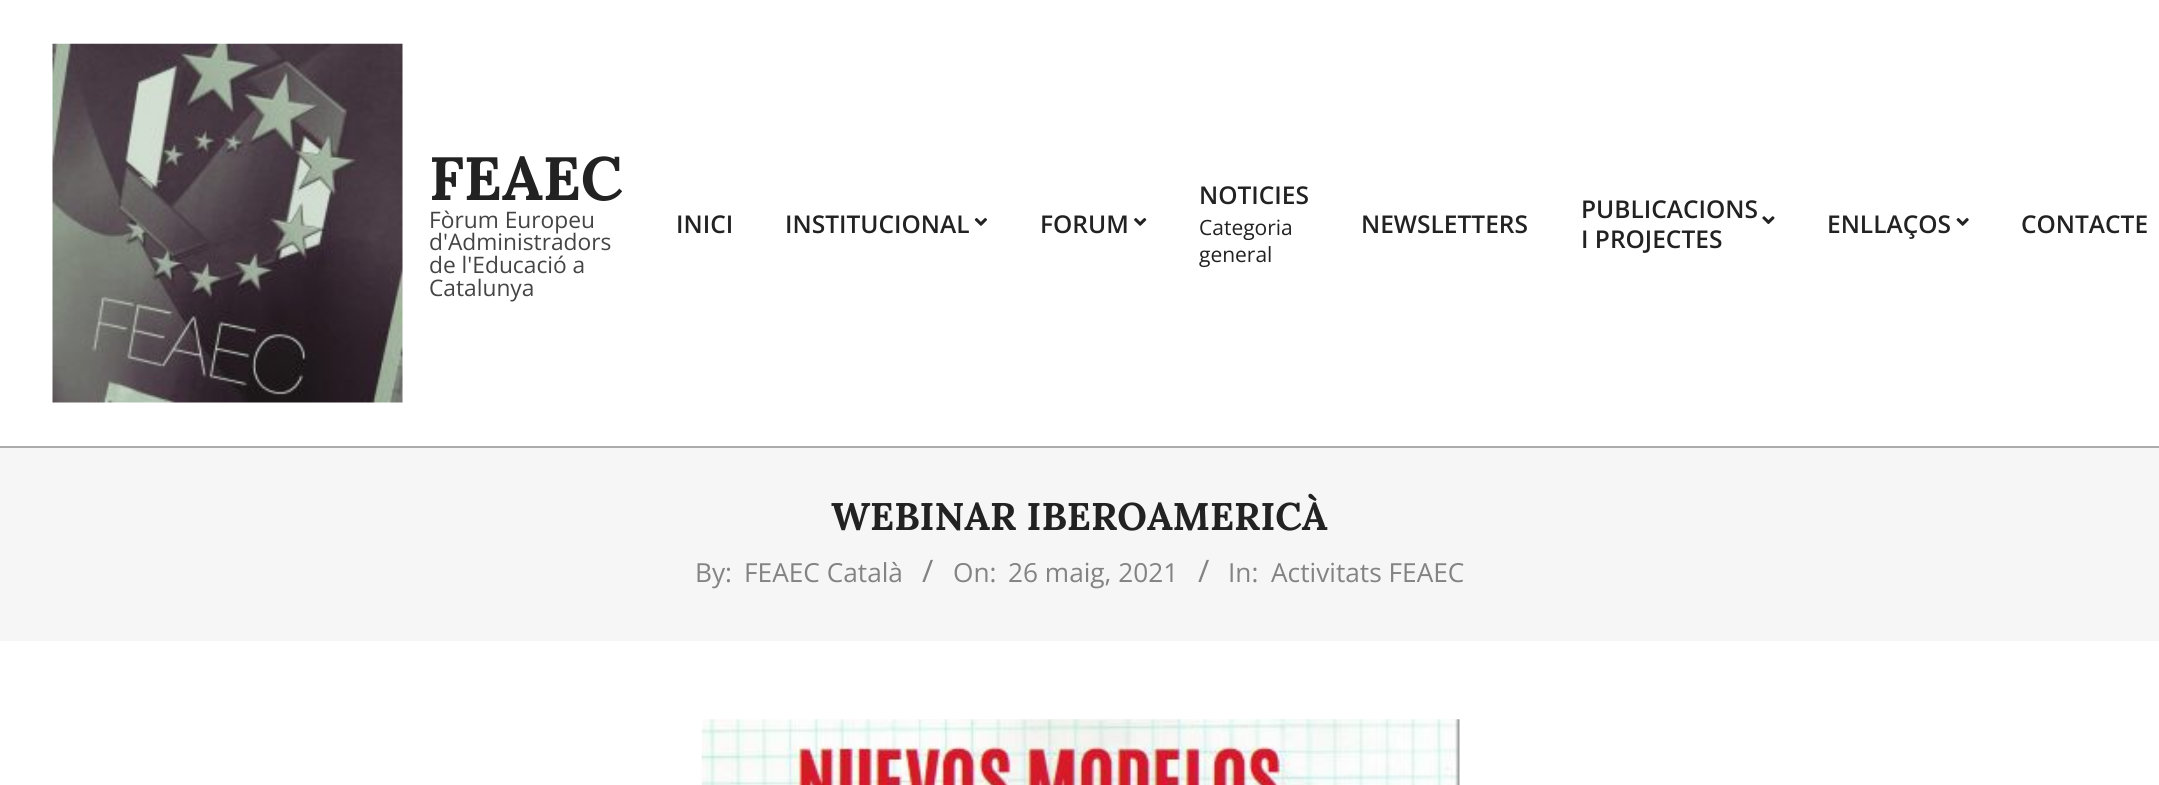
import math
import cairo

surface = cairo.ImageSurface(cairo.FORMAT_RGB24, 2159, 785)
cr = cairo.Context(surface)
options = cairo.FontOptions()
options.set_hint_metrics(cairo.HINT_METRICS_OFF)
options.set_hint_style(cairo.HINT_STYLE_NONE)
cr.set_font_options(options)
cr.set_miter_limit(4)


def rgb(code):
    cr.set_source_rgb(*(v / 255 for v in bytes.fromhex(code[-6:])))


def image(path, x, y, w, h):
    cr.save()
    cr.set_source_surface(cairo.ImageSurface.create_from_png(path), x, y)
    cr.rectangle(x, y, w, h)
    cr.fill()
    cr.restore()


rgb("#ffffff")
cr.paint()
rgb("#ababab")
cr.rectangle(0, 446, 2159, 2)
cr.fill()
image("img/1.png", 52, 43, 351, 360)
image("img/2.png", 974, 218, 13, 8)
image("img/3.png", 1134, 218, 13, 8)
image("img/4.png", 1762, 216, 13, 8)
image("img/5.png", 1956, 218, 13, 8)
rgb("#f6f6f6")
cr.rectangle(0, 448, 2159, 193)
cr.fill()
image("img/6.png", 701, 719, 759, 66)
cr.select_font_face("Lora", cairo.FONT_SLANT_NORMAL, cairo.FONT_WEIGHT_BOLD)
cr.set_font_size(61)
rgb("#222222")
cr.move_to(429, 200)
cr.show_text("FEAEC")
cr.select_font_face("Open Sans")
cr.set_font_size(22.75)
rgb("#444444")
for x, y, s in [
    (429, 228, "Fòrum Europeu"),
    (429, 250, "d'Administradors"),
    (429, 273, "de l'Educació a"),
    (429, 296, "Catalunya"),
]:
    cr.move_to(x, y)
    cr.show_text(s)
cr.select_font_face("Open Sans SemiBold")
cr.set_font_size(24.5)
rgb("#222222")
for x, y, s in [
    (676, 233, "INICI"),
    (785, 233, "INSTITUCIONAL"),
    (1040, 233, "FORUM"),
    (1199, 204, "NOTICIES"),
]:
    cr.move_to(x, y)
    cr.show_text(s)
cr.select_font_face("Open Sans")
cr.set_font_size(21)
cr.move_to(1199, 235)
cr.show_text("Categoria")
cr.move_to(1199, 262)
cr.show_text("general")
cr.select_font_face("Open Sans SemiBold")
cr.set_font_size(24.5)
for x, y, s in [
    (1361, 233, "NEWSLETTERS"),
    (1581, 218, "PUBLICACIONS"),
    (1581, 248, "I PROJECTES"),
    (1827, 233, "ENLLAÇOS"),
    (2021, 233, "CONTACTE"),
]:
    cr.move_to(x, y)
    cr.show_text(s)
cr.select_font_face("Lora", cairo.FONT_SLANT_NORMAL, cairo.FONT_WEIGHT_BOLD)
cr.set_font_size(38.5)
cr.move_to(831, 530)
cr.show_text("WEBINAR IBEROAMERICÀ")
cr.select_font_face("Open Sans")
cr.set_font_size(26.25)
rgb("#838383")
cr.move_to(695, 582)
cr.show_text("By:")
cr.move_to(744, 582)
cr.show_text("FEAEC Català")
cr.set_font_size(31)
cr.move_to(922, 582)
cr.show_text("/")
cr.set_font_size(26.25)
cr.move_to(953, 582)
cr.show_text("On:")
cr.move_to(1008, 582)
cr.show_text("26 maig, 2021")
cr.set_font_size(31)
cr.move_to(1198, 582)
cr.show_text("/")
cr.set_font_size(26.25)
cr.move_to(1228, 582)
cr.show_text("In:")
cr.move_to(1271, 582)
cr.show_text("Activitats FEAEC")
surface.write_to_png("page.png")
